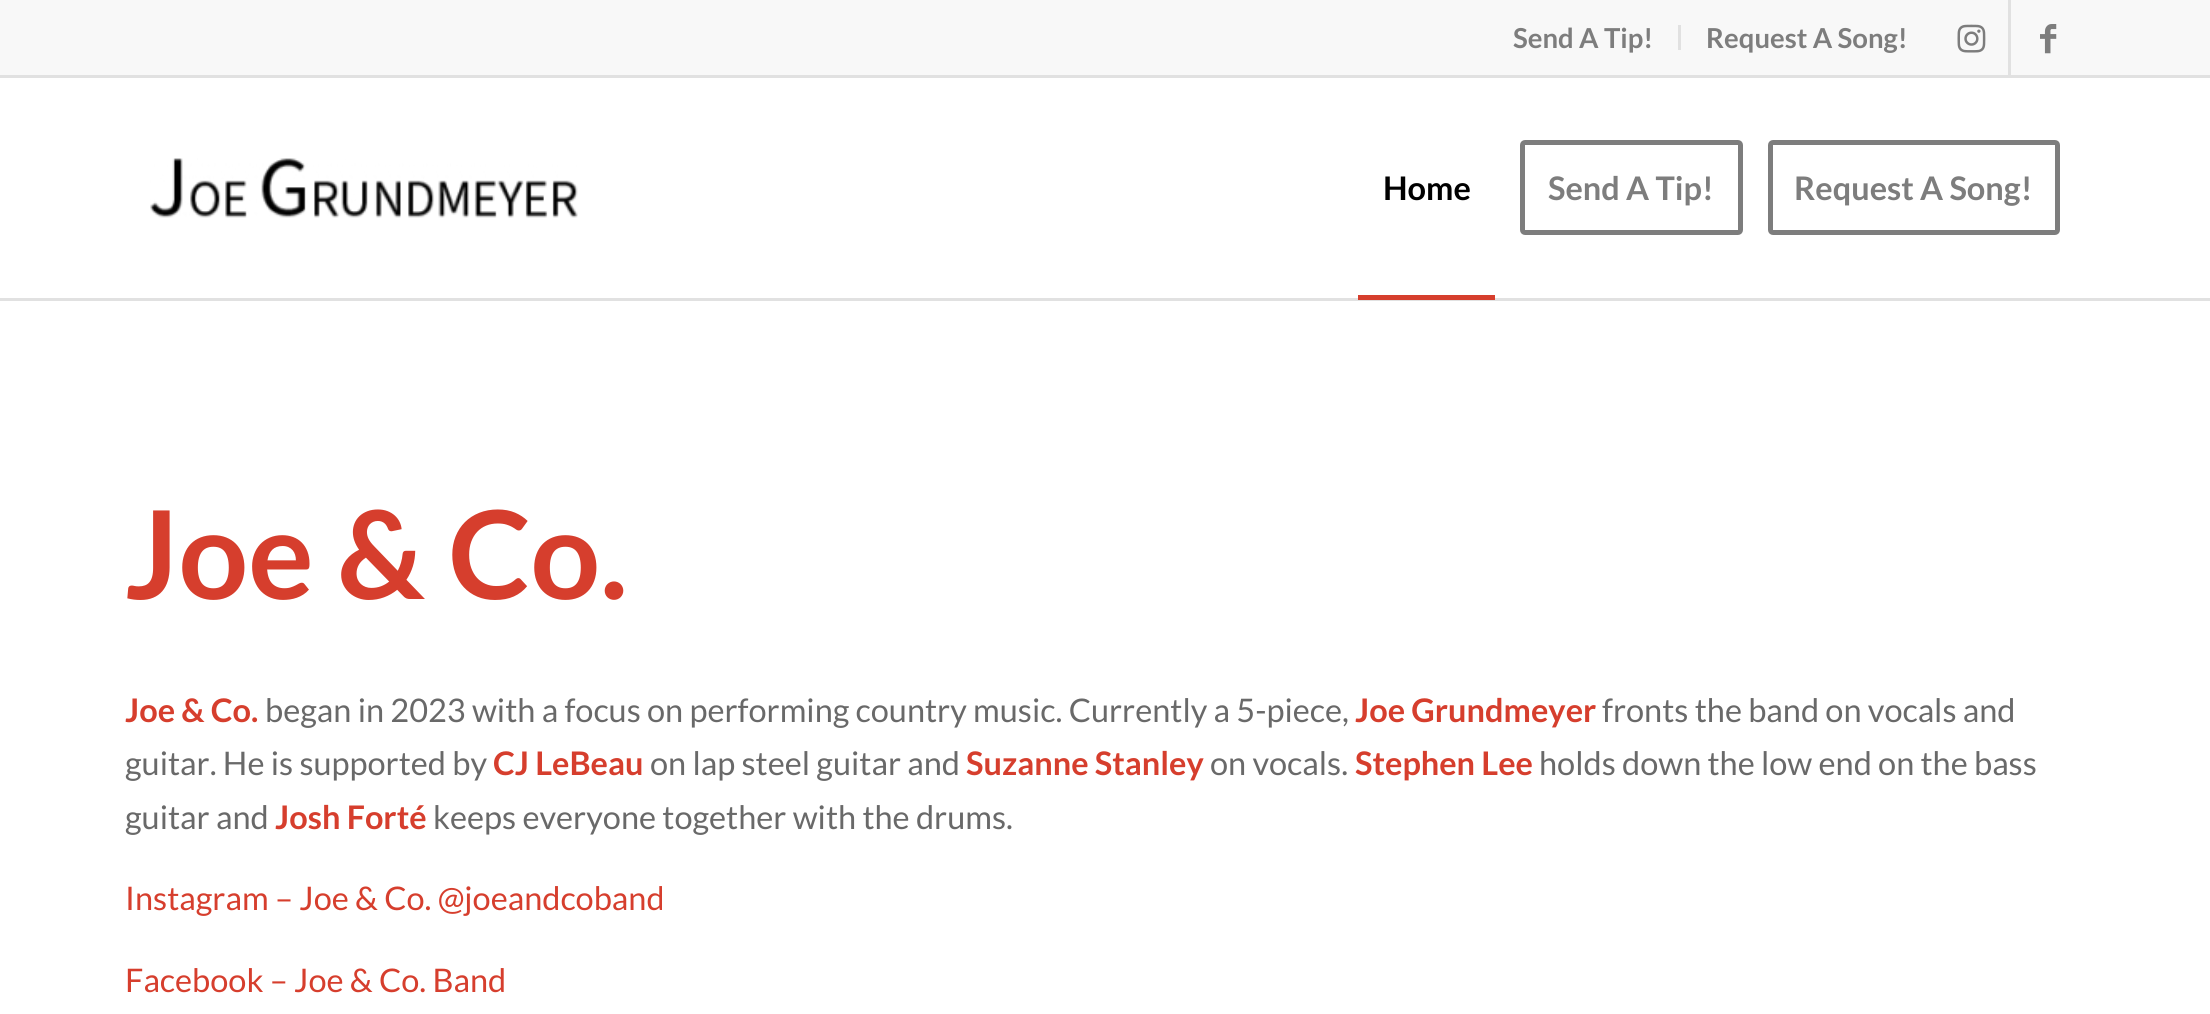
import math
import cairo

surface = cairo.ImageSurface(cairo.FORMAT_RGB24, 2210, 1014)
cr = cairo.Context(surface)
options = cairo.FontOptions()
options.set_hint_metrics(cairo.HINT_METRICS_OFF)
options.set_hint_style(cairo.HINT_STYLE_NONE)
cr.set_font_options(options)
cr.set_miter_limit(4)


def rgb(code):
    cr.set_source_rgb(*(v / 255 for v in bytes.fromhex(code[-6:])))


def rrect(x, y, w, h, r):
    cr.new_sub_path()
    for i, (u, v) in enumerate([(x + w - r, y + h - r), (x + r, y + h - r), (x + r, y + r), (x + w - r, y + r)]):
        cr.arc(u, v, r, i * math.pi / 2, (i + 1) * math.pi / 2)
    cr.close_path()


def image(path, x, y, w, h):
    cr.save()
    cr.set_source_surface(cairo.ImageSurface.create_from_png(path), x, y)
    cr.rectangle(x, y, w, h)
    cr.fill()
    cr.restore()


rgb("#ffffff")
cr.paint()
for x, y, w, h, color in [
    (0, 0, 2210, 75, "#f8f8f8"),
    (0, 75, 2210, 3, "#e1e1e1"),
    (1678, 25, 3, 25, "#e1e1e1"),
    (2008, 0, 3, 75, "#e1e1e1"),
]:
    rgb(color)
    cr.rectangle(x, y, w, h)
    cr.fill()
image("img/1.png", 1957, 24, 29, 29)
image("img/2.png", 2040, 24, 17, 30)
cr.rectangle(0, 298, 2210, 3)
cr.fill()
image("img/3.png", 150, 158, 428, 60)
rgb("#d63e2d")
cr.rectangle(1358, 295, 137, 5)
cr.fill()
rrect(1522.5, 142.5, 218, 90, 2.5)
rgb("#7d7d7d")
cr.set_line_width(5)
cr.stroke()
rrect(1770.5, 142.5, 287, 90, 2.5)
cr.stroke()
cr.select_font_face("Lato", cairo.FONT_SLANT_NORMAL, cairo.FONT_WEIGHT_BOLD)
cr.set_font_size(27.5)
cr.move_to(1513, 48)
cr.show_text("Send A Tip!")
cr.move_to(1706, 48)
cr.show_text("Request A Song!")
cr.set_font_size(32.5)
rgb("#000000")
cr.move_to(1383, 200)
cr.show_text("Home")
rgb("#7d7d7d")
cr.move_to(1548, 200)
cr.show_text("Send A Tip!")
cr.move_to(1794, 200)
cr.show_text("Request A Song!")
cr.set_font_size(122.5)
rgb("#d63e2d")
cr.move_to(125, 599)
cr.show_text("Joe & Co.")
cr.set_font_size(32.5)
cr.move_to(125, 722)
cr.show_text("Joe & Co.")
cr.select_font_face("Lato")
rgb("#696969")
cr.move_to(265, 722)
cr.show_text("began in 2023 with a focus on performing country music. Currently a 5-piece,")
cr.select_font_face("Lato", cairo.FONT_SLANT_NORMAL, cairo.FONT_WEIGHT_BOLD)
rgb("#d63e2d")
cr.move_to(1355, 722)
cr.show_text("Joe Grundmeyer")
cr.select_font_face("Lato")
rgb("#696969")
cr.move_to(1602, 722)
cr.show_text("fronts the band on vocals and")
cr.move_to(125, 775)
cr.show_text("guitar. He is supported by")
cr.select_font_face("Lato", cairo.FONT_SLANT_NORMAL, cairo.FONT_WEIGHT_BOLD)
rgb("#d63e2d")
cr.move_to(493, 775)
cr.show_text("CJ LeBeau")
cr.select_font_face("Lato")
rgb("#696969")
cr.move_to(650, 775)
cr.show_text("on lap steel guitar and")
cr.select_font_face("Lato", cairo.FONT_SLANT_NORMAL, cairo.FONT_WEIGHT_BOLD)
rgb("#d63e2d")
cr.move_to(966, 775)
cr.show_text("Suzanne Stanley")
cr.select_font_face("Lato")
rgb("#696969")
cr.move_to(1210, 775)
cr.show_text("on vocals.")
cr.select_font_face("Lato", cairo.FONT_SLANT_NORMAL, cairo.FONT_WEIGHT_BOLD)
rgb("#d63e2d")
cr.move_to(1355, 775)
cr.show_text("Stephen Lee")
cr.select_font_face("Lato")
rgb("#696969")
cr.move_to(1539, 775)
cr.show_text("holds down the low end on the bass")
cr.move_to(125, 829)
cr.show_text("guitar and")
cr.select_font_face("Lato", cairo.FONT_SLANT_NORMAL, cairo.FONT_WEIGHT_BOLD)
rgb("#d63e2d")
cr.move_to(275, 829)
cr.show_text("Josh Forté")
cr.select_font_face("Lato")
rgb("#696969")
cr.move_to(433, 829)
cr.show_text("keeps everyone together with the drums.")
rgb("#d63e2d")
cr.move_to(125, 910)
cr.show_text("Instagram – Joe & Co. @joeandcoband")
cr.move_to(125, 992)
cr.show_text("Facebook – Joe & Co. Band")
surface.write_to_png("page.png")
